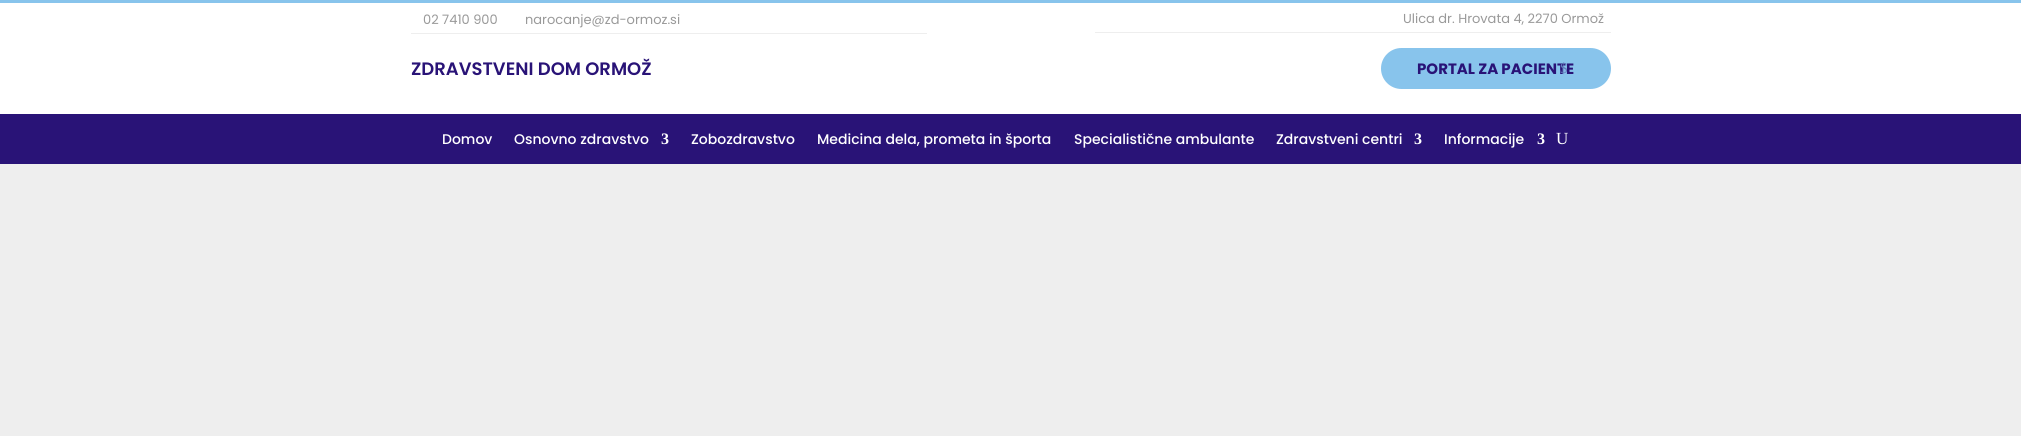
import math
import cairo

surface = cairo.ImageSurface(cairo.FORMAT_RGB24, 2021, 436)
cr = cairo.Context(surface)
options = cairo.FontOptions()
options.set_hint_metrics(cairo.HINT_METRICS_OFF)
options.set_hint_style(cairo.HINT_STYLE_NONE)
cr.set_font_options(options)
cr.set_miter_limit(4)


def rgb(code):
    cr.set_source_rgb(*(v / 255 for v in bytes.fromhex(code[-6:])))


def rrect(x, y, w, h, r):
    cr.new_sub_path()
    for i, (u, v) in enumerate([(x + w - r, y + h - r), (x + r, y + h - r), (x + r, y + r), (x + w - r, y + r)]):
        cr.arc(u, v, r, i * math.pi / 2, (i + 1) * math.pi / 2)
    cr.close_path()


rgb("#ffffff")
cr.paint()
for x, y, w, h, color in [
    (0, 0, 2021, 3, "#88c4ec"),
    (411, 33, 516, 1, "#eeeeee"),
    (1095, 32, 516, 1, "#eeeeee"),
]:
    rgb(color)
    cr.rectangle(x, y, w, h)
    cr.fill()
rgb("#88c4ec")
rrect(1381, 48, 230, 41, 20.5)
cr.fill()
rgb("#291377")
cr.rectangle(0, 114, 2021, 50)
cr.fill()
rgb("#eeeeee")
cr.rectangle(0, 164, 2021, 272)
cr.fill()
cr.select_font_face("Poppins")
cr.set_font_size(13)
rgb("#999999")
for x, y, s in [
    (423, 24, "02 7410 900"),
    (525, 24, "narocanje@zd-ormoz.si"),
    (1403, 23, "Ulica dr. Hrovata 4, 2270 Ormož"),
]:
    cr.move_to(x, y)
    cr.show_text(s)
cr.select_font_face("Poppins SemiBold")
cr.set_font_size(18)
rgb("#291377")
cr.move_to(411, 75)
cr.show_text("ZDRAVSTVENI DOM ORMOŽ")
cr.select_font_face("Poppins", cairo.FONT_SLANT_NORMAL, cairo.FONT_WEIGHT_BOLD)
cr.set_font_size(15)
cr.move_to(1417, 74)
cr.show_text("PORTAL ZA PACIENTE")
cr.select_font_face("Liberation Serif")
rgb("#6079ba")
cr.move_to(1560, 73)
cr.show_text("$")
cr.select_font_face("Poppins Medium")
cr.set_font_size(14)
rgb("#ffffff")
cr.move_to(442, 144)
cr.show_text("Domov")
cr.move_to(514, 144)
cr.show_text("Osnovno zdravstvo")
cr.select_font_face("Liberation Serif", cairo.FONT_SLANT_NORMAL, cairo.FONT_WEIGHT_BOLD)
cr.set_font_size(16)
cr.move_to(661, 144)
cr.show_text("3")
cr.select_font_face("Poppins Medium")
cr.set_font_size(14)
for x, y, s in [
    (691, 144, "Zobozdravstvo"),
    (817, 144, "Medicina dela, prometa in športa"),
    (1074, 144, "Specialistične ambulante"),
    (1276, 144, "Zdravstveni centri"),
]:
    cr.move_to(x, y)
    cr.show_text(s)
cr.select_font_face("Liberation Serif", cairo.FONT_SLANT_NORMAL, cairo.FONT_WEIGHT_BOLD)
cr.set_font_size(16)
cr.move_to(1414, 144)
cr.show_text("3")
cr.select_font_face("Poppins Medium")
cr.set_font_size(14)
cr.move_to(1444, 144)
cr.show_text("Informacije")
cr.select_font_face("Liberation Serif", cairo.FONT_SLANT_NORMAL, cairo.FONT_WEIGHT_BOLD)
cr.set_font_size(16)
cr.move_to(1537, 144)
cr.show_text("3")
cr.select_font_face("Liberation Serif")
cr.set_font_size(17)
cr.move_to(1556, 144)
cr.show_text("U")
surface.write_to_png("page.png")
